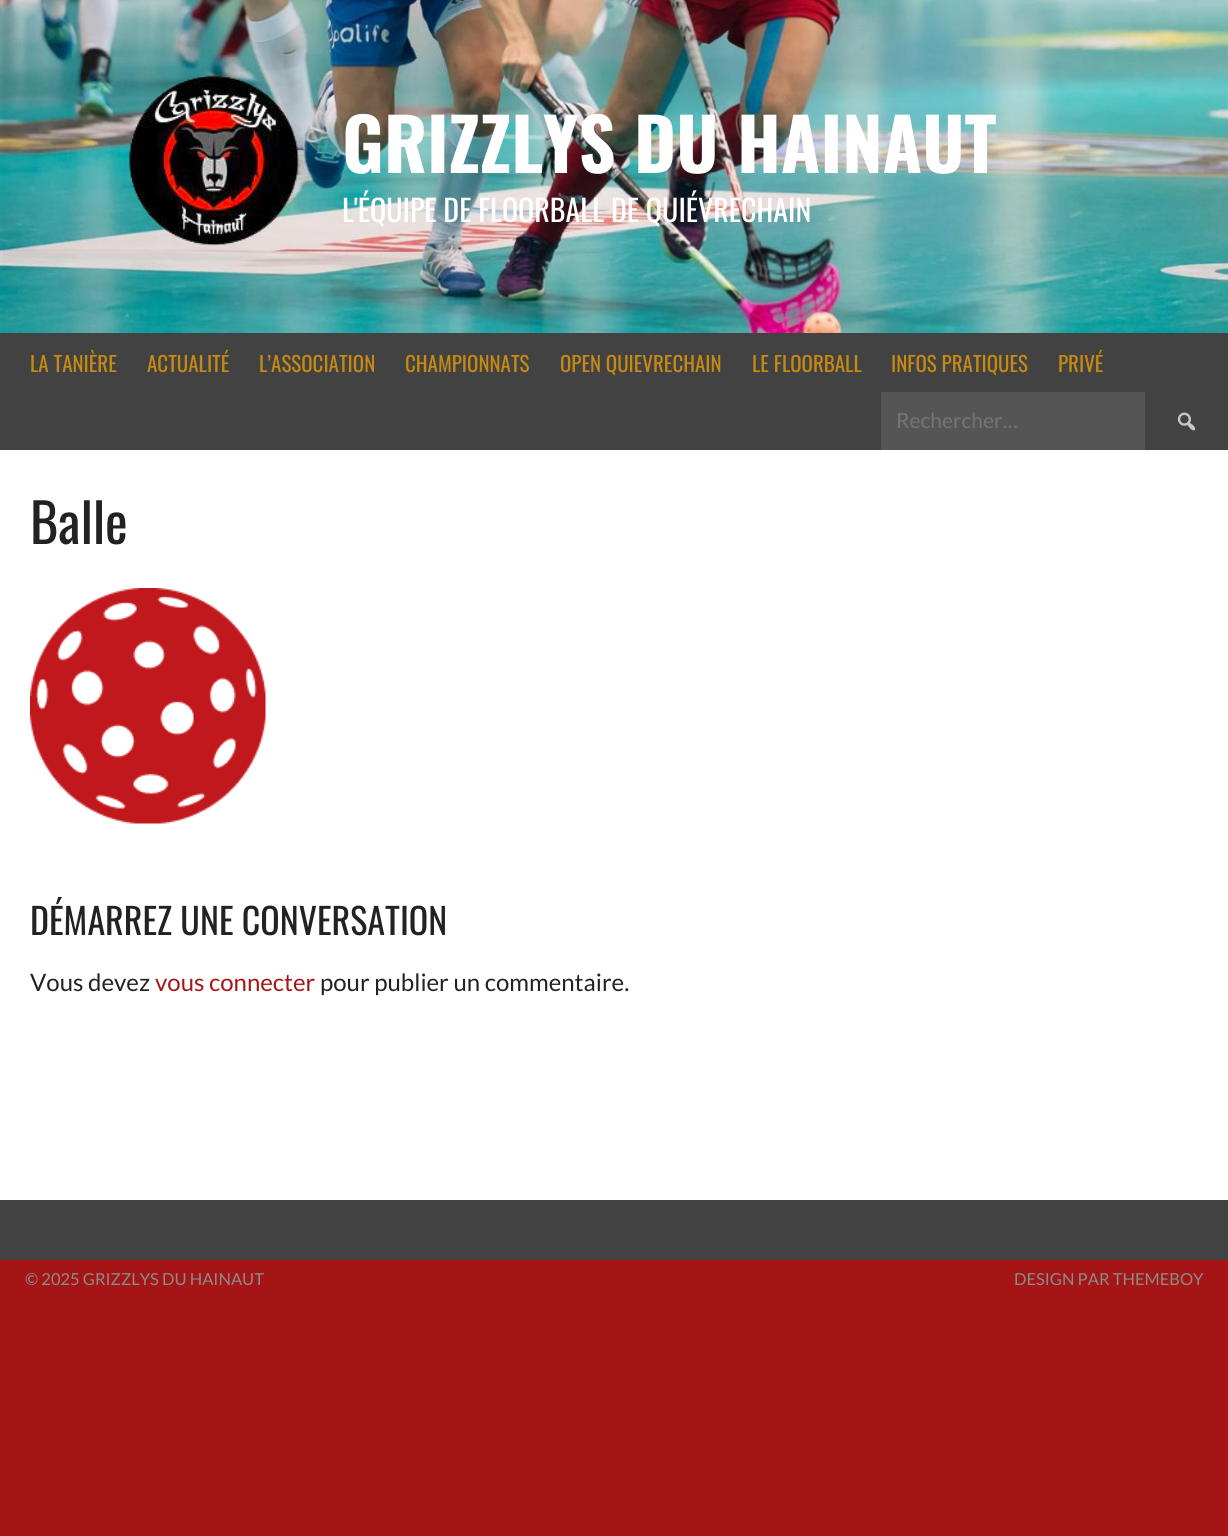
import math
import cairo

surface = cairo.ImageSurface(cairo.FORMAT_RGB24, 1228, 1536)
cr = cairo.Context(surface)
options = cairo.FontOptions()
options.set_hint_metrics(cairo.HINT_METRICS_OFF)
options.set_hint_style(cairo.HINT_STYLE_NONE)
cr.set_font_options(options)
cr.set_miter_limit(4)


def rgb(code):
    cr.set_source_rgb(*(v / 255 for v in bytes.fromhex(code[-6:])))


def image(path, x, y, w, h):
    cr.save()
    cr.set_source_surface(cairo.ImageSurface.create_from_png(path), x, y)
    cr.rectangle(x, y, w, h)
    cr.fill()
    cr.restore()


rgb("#a51515")
cr.paint()
image("img/1.png", 0, 0, 1228, 333)
image("img/2.png", 129, 75, 170, 171)
rgb("#424242")
cr.rectangle(0, 333, 1228, 117)
cr.fill()
rgb("#555555")
cr.rectangle(881, 392, 264, 58)
cr.fill()
image("img/3.png", 1177, 412, 19, 19)
rgb("#ffffff")
cr.rectangle(0, 450, 1228, 750)
cr.fill()
image("img/4.png", 30, 588, 236, 236)
rgb("#424242")
cr.rectangle(0, 1200, 1228, 60)
cr.fill()
cr.select_font_face("Oswald", cairo.FONT_SLANT_NORMAL, cairo.FONT_WEIGHT_BOLD)
cr.set_font_size(72)
rgb("#ffffff")
cr.move_to(342, 173)
cr.show_text("GRIZZLYS DU HAINAUT")
cr.select_font_face("Oswald")
cr.set_font_size(30)
cr.move_to(342, 222)
cr.show_text("L'ÉQUIPE DE FLOORBALL DE QUIÉVRECHAIN")
cr.set_font_size(21)
rgb("#c68914")
for x, y, s in [
    (30, 372, "LA TANIÈRE"),
    (147, 372, "ACTUALITÉ"),
    (259, 372, "L’ASSOCIATION"),
    (405, 372, "CHAMPIONNATS"),
    (560, 372, "OPEN QUIEVRECHAIN"),
    (752, 372, "LE FLOORBALL"),
    (891, 372, "INFOS PRATIQUES"),
    (1058, 372, "PRIVÉ"),
]:
    cr.move_to(x, y)
    cr.show_text(s)
cr.select_font_face("Lato")
rgb("#757575")
cr.move_to(896, 428)
cr.show_text("Rechercher…")
cr.select_font_face("Oswald")
cr.set_font_size(54)
rgb("#222222")
cr.move_to(30, 544)
cr.show_text("Balle")
cr.set_font_size(36)
cr.move_to(30, 935)
cr.show_text("DÉMARREZ UNE CONVERSATION")
cr.select_font_face("Lato")
cr.set_font_size(24)
cr.move_to(30, 991)
cr.show_text("Vous devez")
rgb("#a51515")
cr.move_to(155, 991)
cr.show_text("vous connecter")
rgb("#222222")
cr.move_to(320, 991)
cr.show_text("pour publier un commentaire.")
cr.set_font_size(16.5)
rgb("#8b8b8b")
cr.move_to(25, 1285)
cr.show_text("© 2025 GRIZZLYS DU HAINAUT")
cr.move_to(1014, 1285)
cr.show_text("DESIGN PAR THEMEBOY")
surface.write_to_png("page.png")
